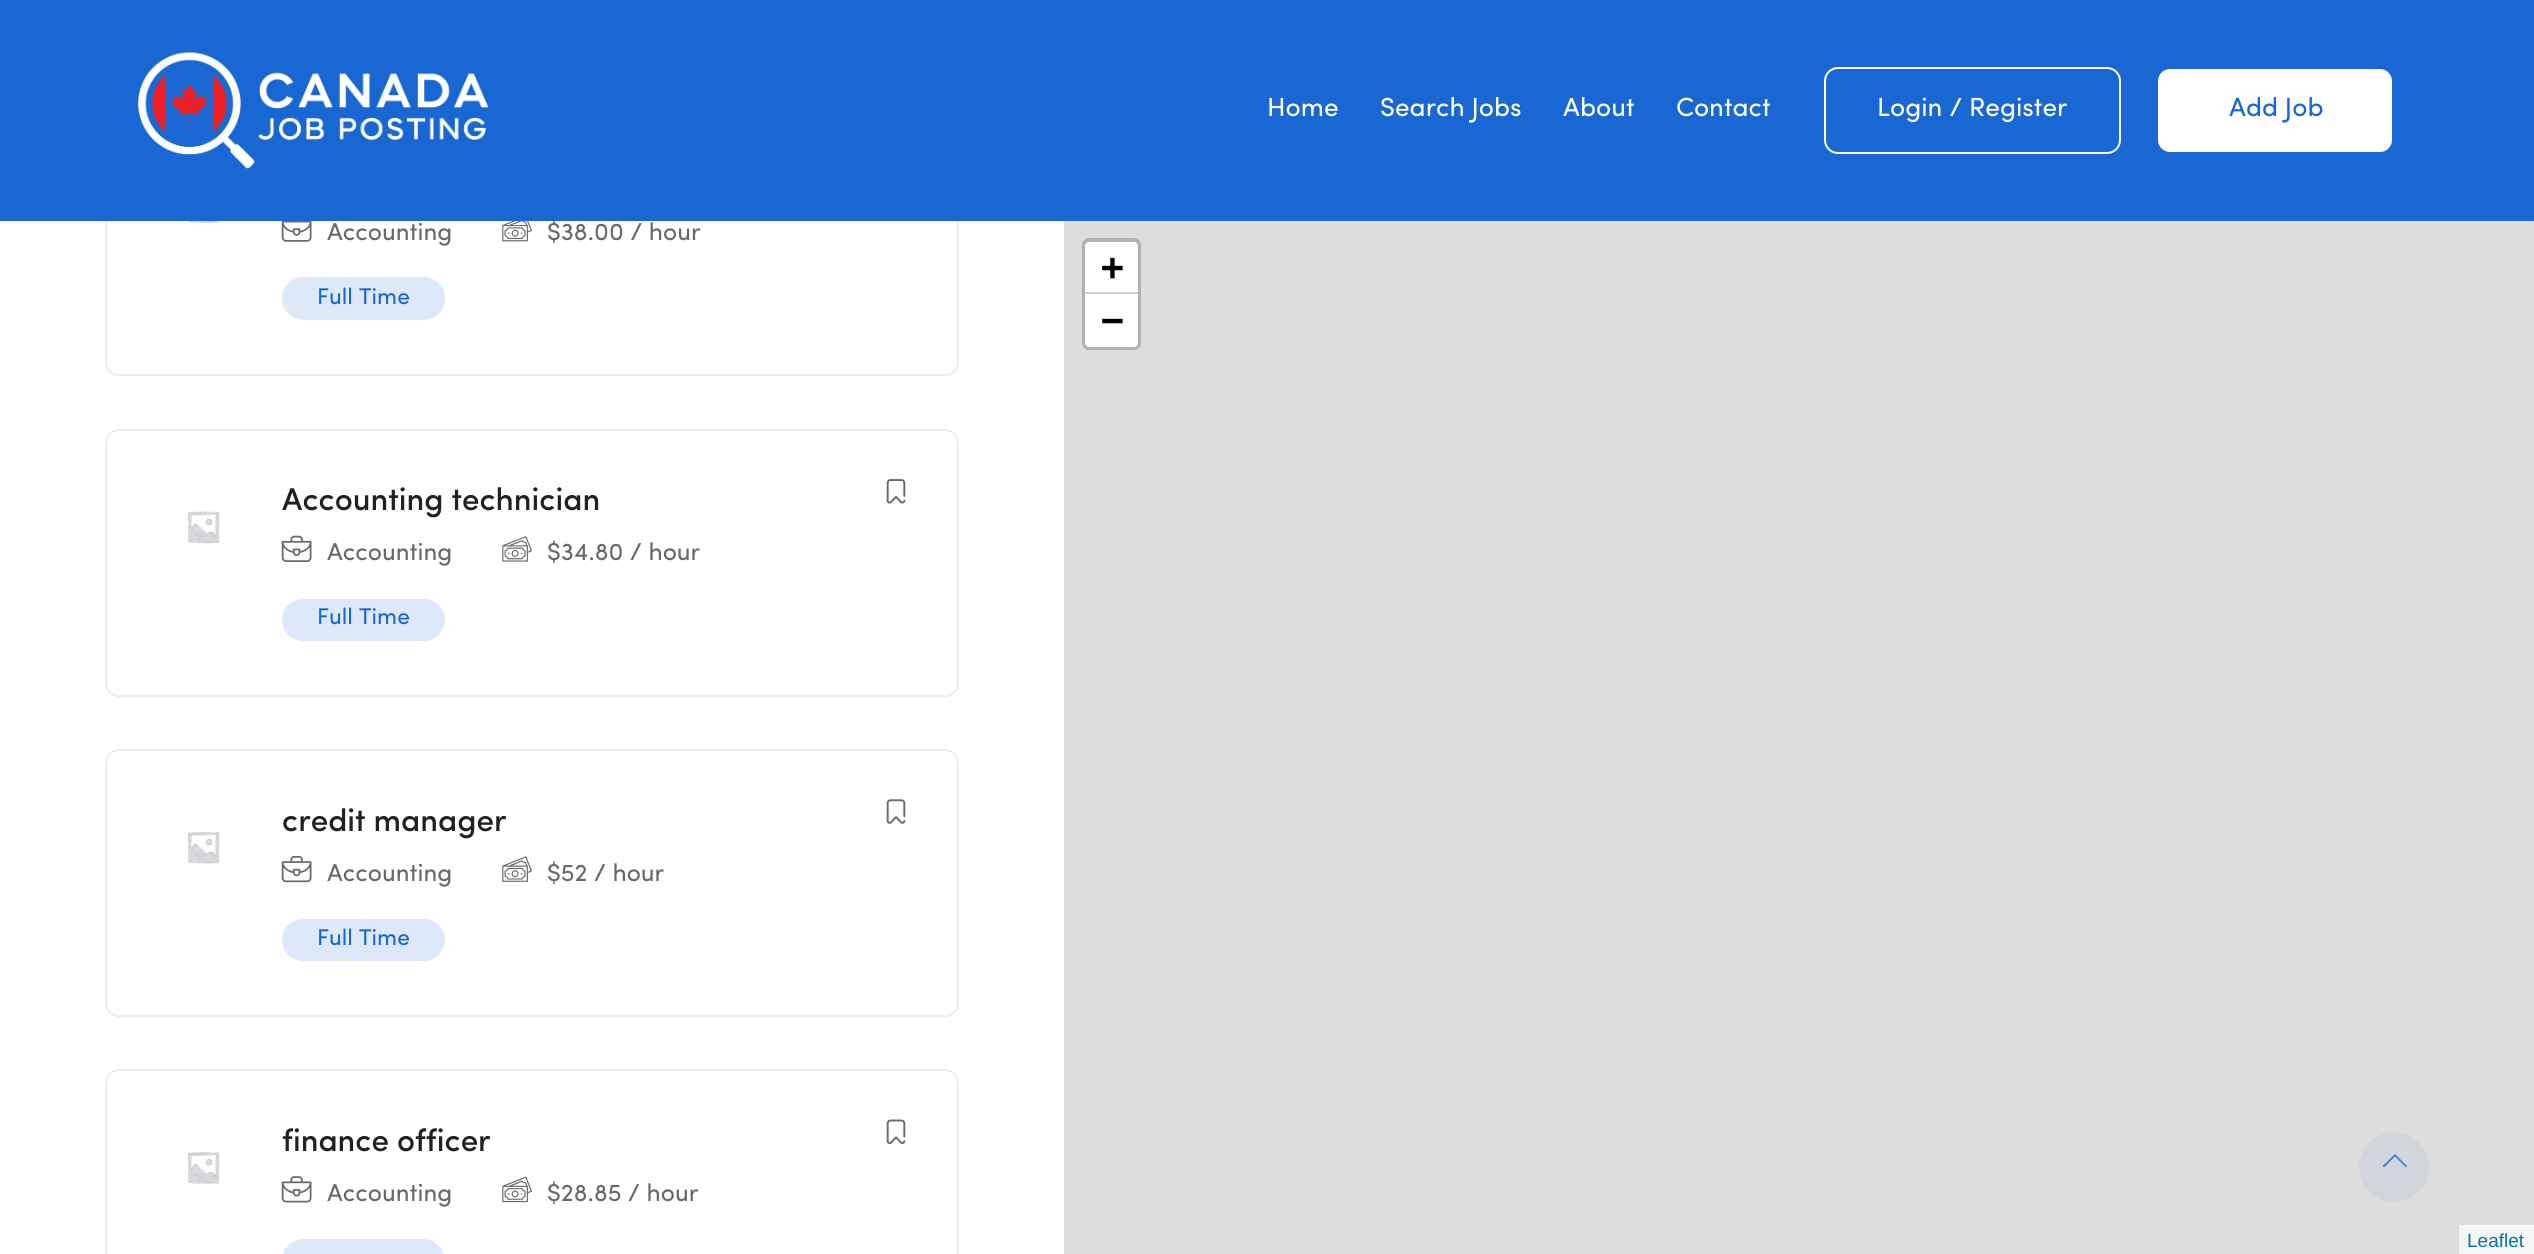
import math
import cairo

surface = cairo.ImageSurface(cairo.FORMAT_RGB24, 2534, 1254)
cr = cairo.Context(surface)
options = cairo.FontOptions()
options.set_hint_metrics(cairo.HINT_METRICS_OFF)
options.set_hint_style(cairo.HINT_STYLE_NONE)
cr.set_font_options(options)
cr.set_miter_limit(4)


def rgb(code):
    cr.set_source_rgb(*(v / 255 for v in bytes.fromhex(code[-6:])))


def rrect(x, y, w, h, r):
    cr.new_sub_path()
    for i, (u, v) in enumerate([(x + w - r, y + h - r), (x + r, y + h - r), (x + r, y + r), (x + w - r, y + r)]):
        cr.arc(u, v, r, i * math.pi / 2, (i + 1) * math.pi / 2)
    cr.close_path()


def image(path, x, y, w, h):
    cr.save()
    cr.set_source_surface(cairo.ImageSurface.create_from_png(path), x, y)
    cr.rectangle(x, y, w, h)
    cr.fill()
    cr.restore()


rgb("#ffffff")
cr.paint()
rrect(106, 110, 852, 265, 13)
rgb("#ecedf2")
cr.stroke()
image("img/2.png", 188, 221, 32, 2)
image("img/3.png", 281, 221, 31, 21)
image("img/4.png", 502, 221, 30, 21)
rgb("#dde8f8")
rrect(282, 277, 163, 43, 21.5)
cr.fill()
rrect(106, 430, 852, 266, 13)
rgb("#ecedf2")
cr.stroke()
image("img/5.png", 188, 511, 32, 33)
image("img/6.png", 281, 535, 31, 27)
image("img/7.png", 502, 536, 30, 26)
rgb("#dde8f8")
rrect(282, 599, 163, 42, 21)
cr.fill()
image("img/8.png", 886, 479, 20, 25)
rrect(106, 750, 852, 266, 13)
rgb("#ecedf2")
cr.stroke()
image("img/9.png", 188, 832, 32, 32)
image("img/10.png", 281, 855, 31, 28)
image("img/11.png", 502, 856, 30, 26)
rgb("#dde8f8")
rrect(282, 919, 163, 42, 21)
cr.fill()
image("img/12.png", 886, 799, 20, 25)
rrect(106, 1070, 852, 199, 13)
rgb("#ecedf2")
cr.stroke()
image("img/13.png", 188, 1152, 32, 32)
image("img/14.png", 281, 1176, 31, 27)
image("img/15.png", 502, 1176, 30, 27)
rgb("#dde8f8")
rrect(282, 1239, 163, 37, 22)
cr.fill()
image("img/16.png", 886, 1119, 20, 25)
rgb("#dddddd")
cr.rectangle(1064, 221, 1470, 1033)
cr.fill()
rrect(1084, 240, 55, 108, 5)
rgb("#b1b1b1")
cr.set_line_width(4)
cr.stroke()
rgb("#ffffff")
cr.new_path()
cr.move_to(1089, 242)
cr.line_to(1134, 242)
cr.curve_to(1136, 242, 1138, 244, 1138, 246)
cr.line_to(1138, 294)
cr.line_to(1085, 294)
cr.line_to(1085, 246)
cr.curve_to(1085, 244, 1087, 242, 1089, 242)
cr.close_path()
cr.fill()
rgb("#cccccc")
cr.rectangle(1085, 292, 53, 2)
cr.fill()
rgb("#ffffff")
cr.new_path()
cr.move_to(1085, 294)
cr.line_to(1138, 294)
cr.line_to(1138, 343)
cr.curve_to(1138, 345, 1136, 347, 1134, 347)
cr.line_to(1089, 347)
cr.curve_to(1087, 347, 1085, 345, 1085, 343)
cr.close_path()
cr.fill()
rgb("#f5f5f5")
cr.rectangle(2459, 1225, 75, 29)
cr.fill()
rgb("#d2d6dc")
cr.arc(2394, 1167, 35, 0, 2 * math.pi)
cr.fill()
rgb("#407fd4")
cr.new_path()
cr.move_to(2407, 1166)
cr.line_to(2406, 1167.5)
cr.line_to(2395, 1156.5)
cr.line_to(2384, 1167.5)
cr.line_to(2382.5, 1166)
cr.line_to(2395, 1154)
cr.close_path()
cr.fill()
cr.select_font_face("Sofia")
cr.set_font_size(24.5)
rgb("#696969")
cr.move_to(327, 240)
cr.show_text("Accounting")
cr.move_to(547, 240)
cr.show_text("$38.00 / hour")
rgb("#1967d2")
cr.rectangle(0, 0, 2534, 221)
cr.fill()
rgb("#ffffff")
rrect(2157, 68, 236, 85, 13)
cr.fill_preserve()
rgb("#1967d2")
cr.set_line_width(2)
cr.stroke()
cr.set_font_size(26.25)
cr.move_to(2229, 116)
cr.show_text("Add Job")
rrect(1825, 68, 295, 85, 13)
rgb("#ffffff")
cr.stroke()
for x, y, s in [
    (1877, 116, "Login / Register"),
    (1676, 116, "Contact"),
    (1563, 116, "About"),
    (1380, 116, "Search Jobs"),
    (1267, 116, "Home"),
]:
    cr.move_to(x, y)
    cr.show_text(s)
image("img/1.png", 138, 52, 351, 117)
cr.set_font_size(22.75)
rgb("#1967d2")
cr.move_to(317, 304)
cr.show_text("Full Time")
cr.select_font_face("Sofia Medium")
cr.set_font_size(31.5)
rgb("#202124")
cr.move_to(282, 510)
cr.show_text("Accounting technician")
cr.select_font_face("Sofia")
cr.set_font_size(24.5)
rgb("#696969")
cr.move_to(327, 560)
cr.show_text("Accounting")
cr.move_to(547, 560)
cr.show_text("$34.80 / hour")
cr.set_font_size(22.75)
rgb("#1967d2")
cr.move_to(317, 624)
cr.show_text("Full Time")
cr.select_font_face("Sofia Medium")
cr.set_font_size(31.5)
rgb("#202124")
cr.move_to(282, 831)
cr.show_text("credit manager")
cr.select_font_face("Sofia")
cr.set_font_size(24.5)
rgb("#696969")
cr.move_to(327, 881)
cr.show_text("Accounting")
cr.move_to(547, 881)
cr.show_text("$52 / hour")
cr.set_font_size(22.75)
rgb("#1967d2")
cr.move_to(317, 945)
cr.show_text("Full Time")
cr.select_font_face("Sofia Medium")
cr.set_font_size(31.5)
rgb("#202124")
cr.move_to(282, 1151)
cr.show_text("finance officer")
cr.select_font_face("Sofia")
cr.set_font_size(24.5)
rgb("#696969")
cr.move_to(327, 1201)
cr.show_text("Accounting")
cr.move_to(547, 1201)
cr.show_text("$28.85 / hour")
cr.select_font_face("DejaVu Sans Mono", cairo.FONT_SLANT_NORMAL, cairo.FONT_WEIGHT_BOLD)
cr.set_font_size(38)
rgb("#000000")
cr.move_to(1101, 280)
cr.show_text("+")
cr.move_to(1101, 333)
cr.show_text("−")
cr.select_font_face("Liberation Sans")
cr.set_font_size(19)
rgb("#0078a8")
cr.move_to(2467, 1247)
cr.show_text("Leaflet")
surface.write_to_png("page.png")
